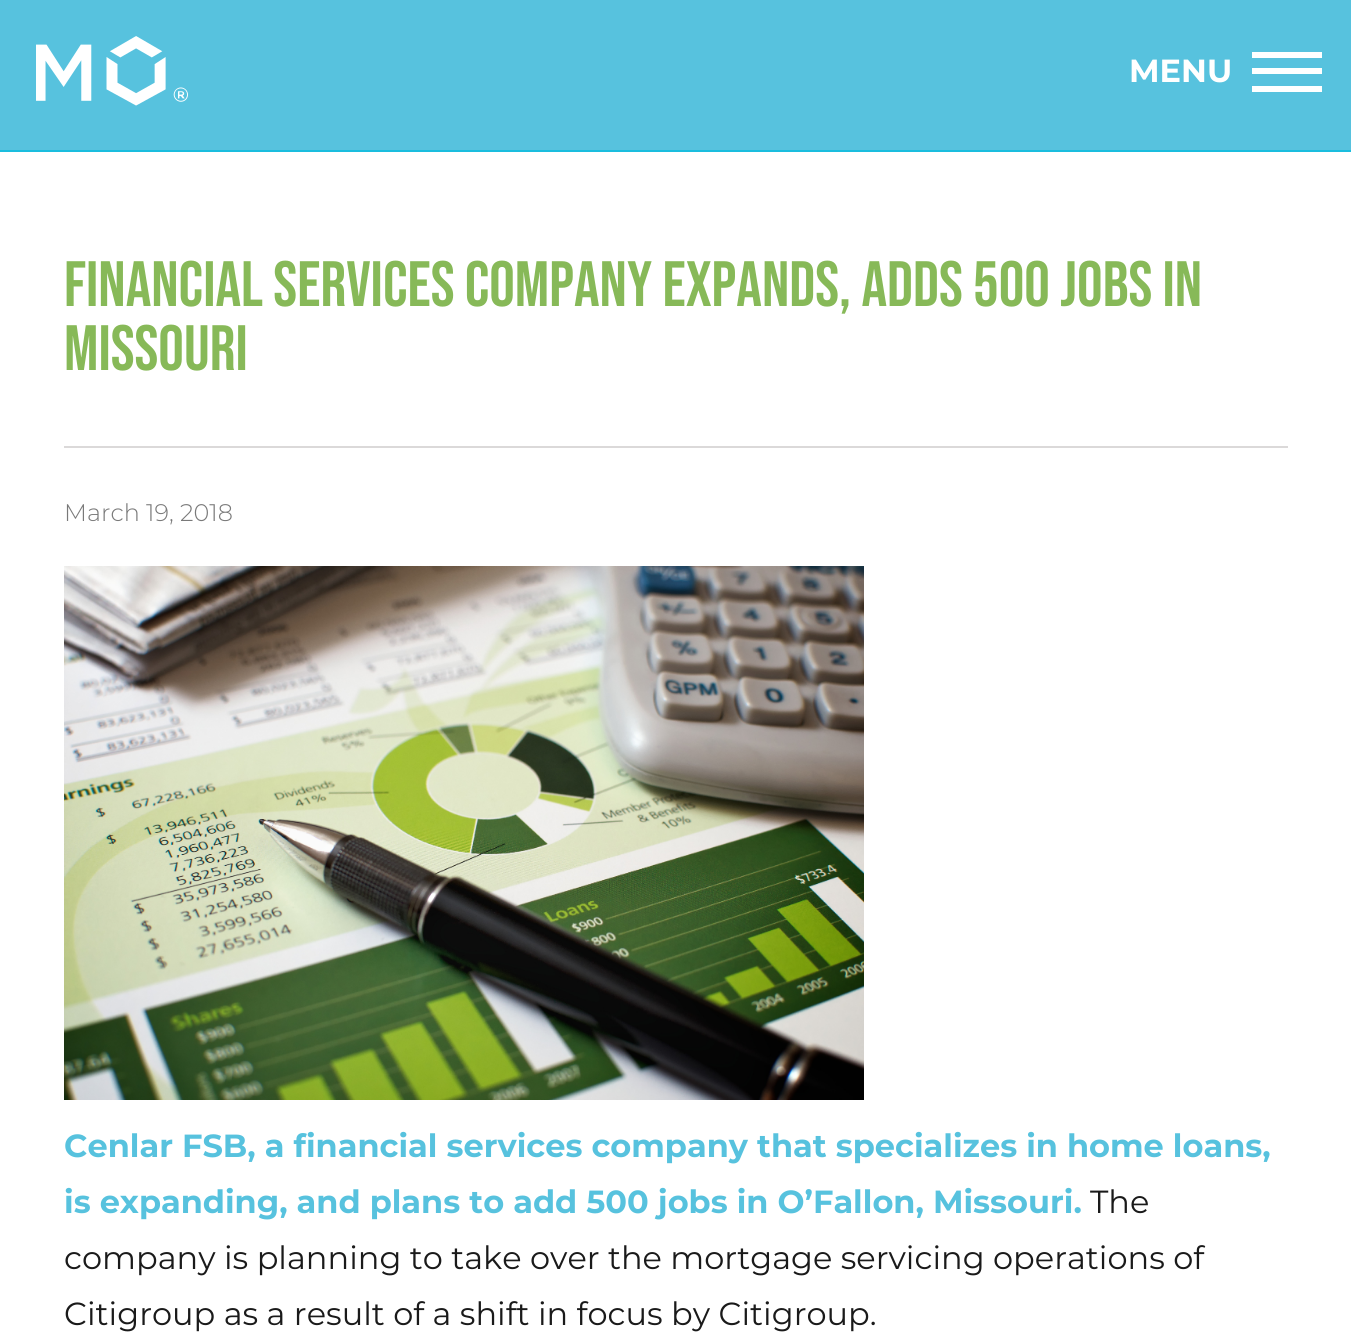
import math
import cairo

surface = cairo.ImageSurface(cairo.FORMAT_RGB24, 1351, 1344)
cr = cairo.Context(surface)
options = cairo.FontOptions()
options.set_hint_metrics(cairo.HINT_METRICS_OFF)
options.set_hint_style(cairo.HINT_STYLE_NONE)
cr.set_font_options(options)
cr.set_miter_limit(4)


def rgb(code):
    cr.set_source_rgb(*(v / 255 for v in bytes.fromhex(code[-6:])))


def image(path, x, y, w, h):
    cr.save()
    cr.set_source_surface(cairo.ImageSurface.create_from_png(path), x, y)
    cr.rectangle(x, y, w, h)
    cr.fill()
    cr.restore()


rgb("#ffffff")
cr.paint()
rgb("#57c2de")
cr.rectangle(0, 0, 1351, 150)
cr.fill()
image("img/1.png", 36, 36, 152, 70)
for x, y, w, h, color in [
    (1252, 52, 70, 6, "#ffffff"),
    (1252, 68, 70, 6, "#ffffff"),
    (1252, 86, 70, 6, "#ffffff"),
    (0, 150, 1351, 2, "#1abdde"),
    (64, 446, 1224, 2, "#dbd9d9"),
]:
    rgb(color)
    cr.rectangle(x, y, w, h)
    cr.fill()
image("img/2.png", 64, 566, 800, 534)
cr.select_font_face("Montserrat", cairo.FONT_SLANT_NORMAL, cairo.FONT_WEIGHT_BOLD)
cr.set_font_size(32)
rgb("#ffffff")
cr.move_to(1129, 82)
cr.show_text("MENU")
cr.select_font_face("Bebas Neue")
cr.set_font_size(64)
rgb("#87b958")
cr.move_to(64, 306)
cr.show_text("FINANCIAL SERVICES COMPANY EXPANDS, ADDS 500 JOBS IN")
cr.move_to(64, 370)
cr.show_text("MISSOURI")
cr.select_font_face("Montserrat Light")
cr.set_font_size(24)
rgb("#797979")
cr.move_to(64, 521)
cr.show_text("March 19, 2018")
cr.select_font_face("Montserrat", cairo.FONT_SLANT_NORMAL, cairo.FONT_WEIGHT_BOLD)
cr.set_font_size(32)
rgb("#57c2de")
cr.move_to(64, 1157)
cr.show_text("Cenlar FSB, a financial services company that specializes in home loans,")
cr.move_to(64, 1213)
cr.show_text("is expanding, and plans to add 500 jobs in O’Fallon, Missouri.")
cr.select_font_face("Montserrat")
rgb("#1a1a1a")
for x, y, s in [
    (1090, 1213, "The"),
    (64, 1269, "company is planning to take over the mortgage servicing operations of"),
    (64, 1325, "Citigroup as a result of a shift in focus by Citigroup."),
]:
    cr.move_to(x, y)
    cr.show_text(s)
surface.write_to_png("page.png")
